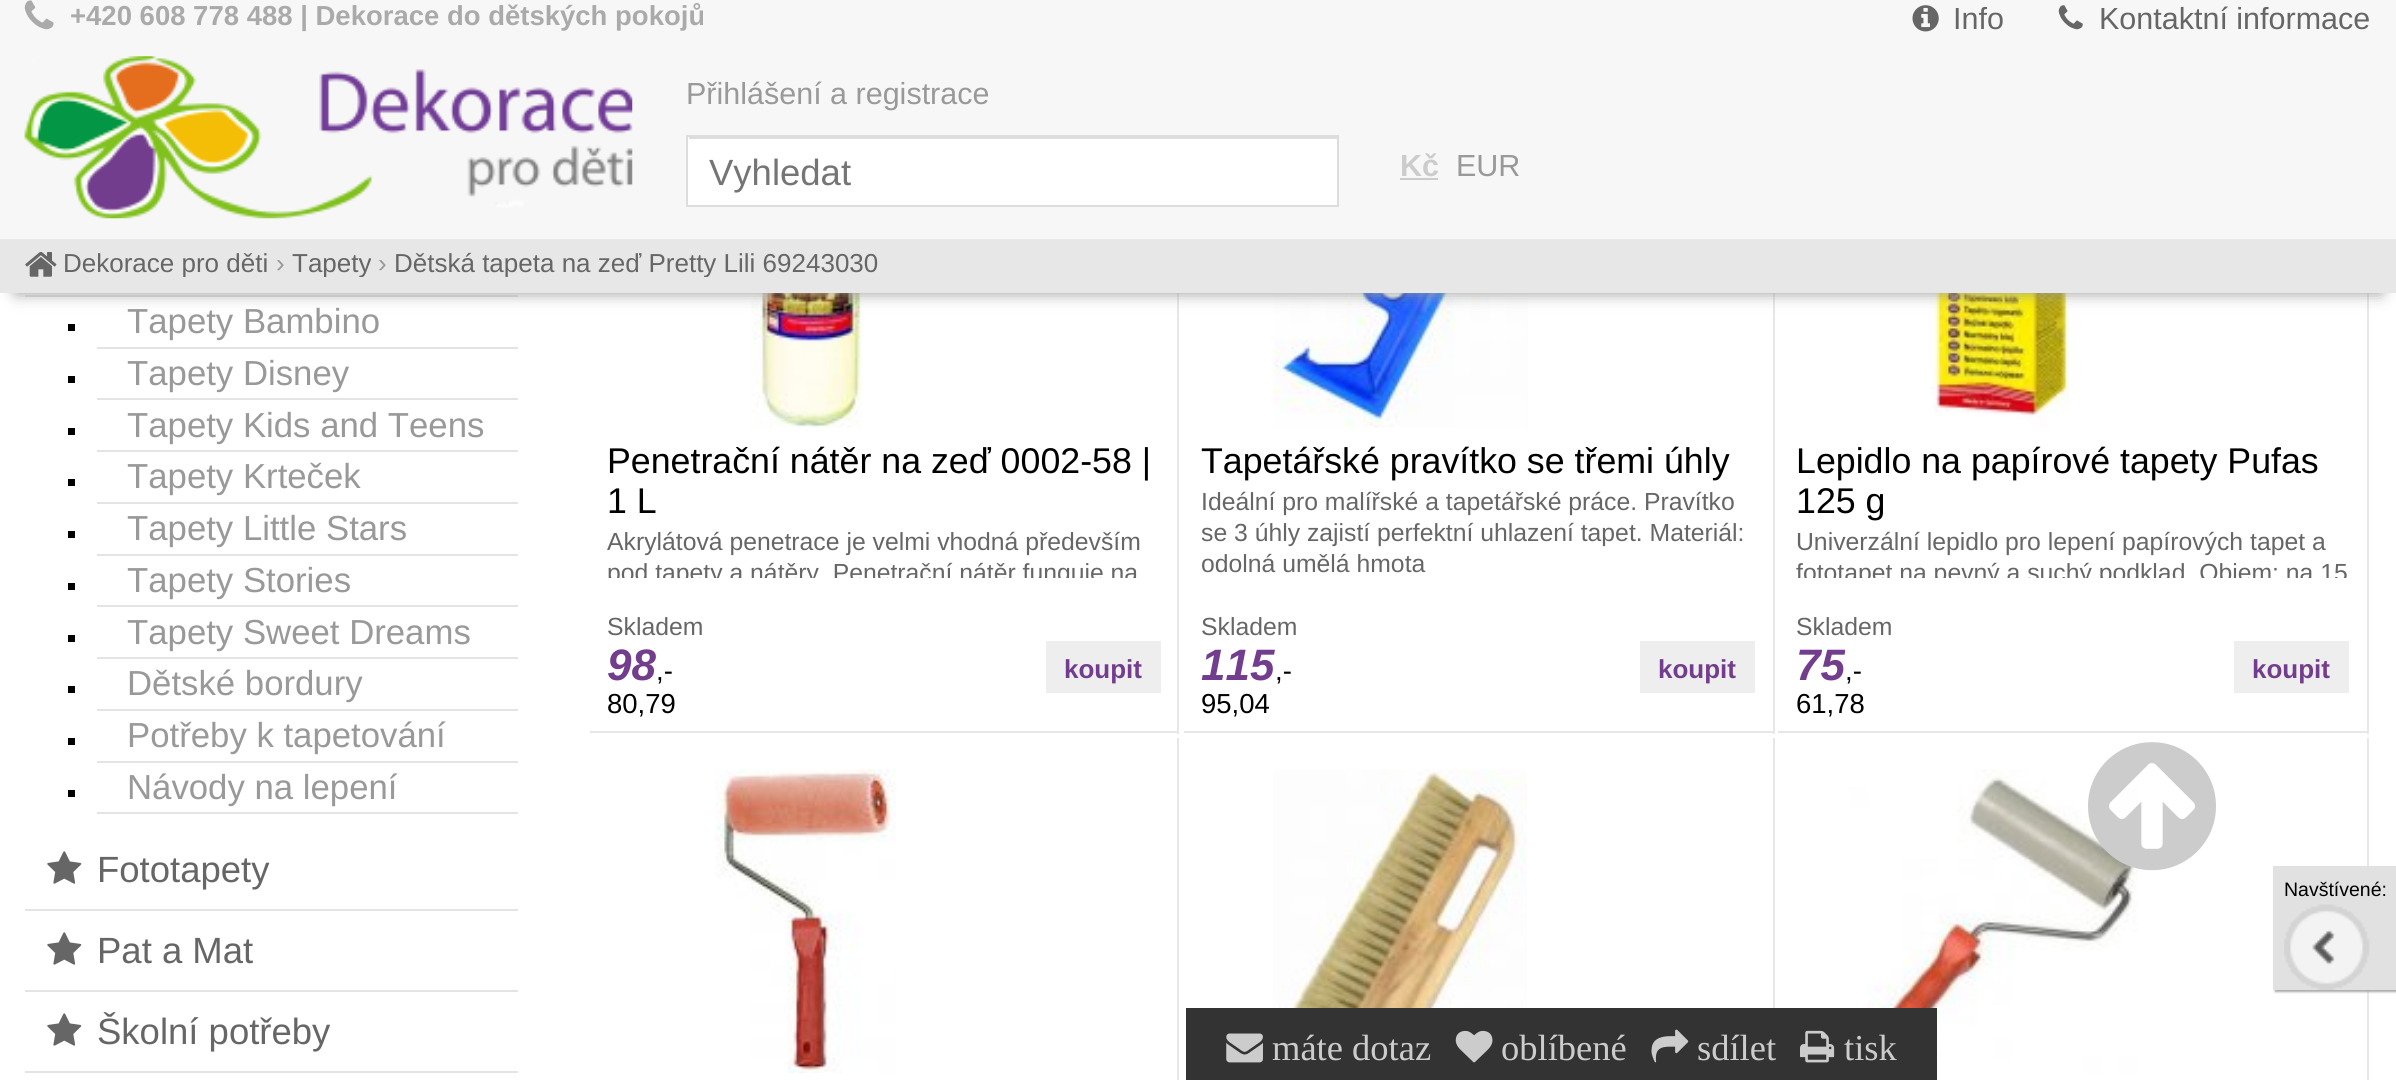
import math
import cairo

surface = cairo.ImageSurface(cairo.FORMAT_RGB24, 2396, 1080)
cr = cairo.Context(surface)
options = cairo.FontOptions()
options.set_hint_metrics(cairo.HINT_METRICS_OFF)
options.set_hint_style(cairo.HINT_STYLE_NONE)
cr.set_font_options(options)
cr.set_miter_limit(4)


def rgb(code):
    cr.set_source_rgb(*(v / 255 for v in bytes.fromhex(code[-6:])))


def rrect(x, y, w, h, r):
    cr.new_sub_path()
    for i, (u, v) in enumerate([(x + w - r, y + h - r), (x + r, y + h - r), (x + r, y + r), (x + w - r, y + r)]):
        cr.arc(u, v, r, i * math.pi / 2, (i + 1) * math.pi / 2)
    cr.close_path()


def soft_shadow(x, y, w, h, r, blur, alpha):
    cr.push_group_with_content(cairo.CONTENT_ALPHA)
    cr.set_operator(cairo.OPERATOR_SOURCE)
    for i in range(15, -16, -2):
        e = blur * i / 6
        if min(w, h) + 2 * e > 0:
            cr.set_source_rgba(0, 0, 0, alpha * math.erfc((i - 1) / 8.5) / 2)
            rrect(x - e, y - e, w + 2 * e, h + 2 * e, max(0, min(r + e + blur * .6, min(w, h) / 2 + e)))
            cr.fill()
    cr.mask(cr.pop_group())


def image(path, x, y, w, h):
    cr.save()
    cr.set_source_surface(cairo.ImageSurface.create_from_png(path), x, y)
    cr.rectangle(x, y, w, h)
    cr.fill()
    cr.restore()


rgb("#ffffff")
cr.paint()
rgb("#e4e4e4")
cr.rectangle(25, 295, 493, 2)
cr.fill()
rgb("#e7e7e7")
cr.rectangle(1177, 293, 2, 441)
cr.fill()
image("img/7.png", 750, 293, 113, 135)
cr.rectangle(1773, 293, 2, 441)
cr.fill()
image("img/8.png", 1272, 293, 256, 135)
cr.rectangle(2367, 293, 2, 441)
cr.fill()
image("img/9.png", 1930, 293, 139, 134)
rgb("#999999")
soft_shadow(16, 32, 2365, 261, 0, 8, 1)
rgb("#f7f7f7")
cr.rectangle(0, 0, 2396, 239)
cr.fill()
rgb("#e7e7e7")
cr.rectangle(0, 239, 2396, 54)
cr.fill()
image("img/1.png", 24, 0, 30, 30)
image("img/2.png", 1912, 5, 27, 27)
image("img/3.png", 2058, 5, 25, 25)
image("img/4.png", 24, 56, 609, 163)
rgb("#ffffff")
cr.rectangle(688, 137, 649, 68)
cr.fill()
rgb("#dddddd")
cr.rectangle(689, 137, 648, 2)
cr.fill()
cr.rectangle(687, 136, 651, 70)
cr.stroke()
rgb("#cccccc")
cr.rectangle(1400, 178, 38, 2)
cr.fill()
image("img/5.png", 25, 252, 32, 25)
for x, y, w, h, color in [
    (68, 324, 7, 7, "#000000"),
    (97, 347, 421, 2, "#e4e4e4"),
    (68, 376, 7, 7, "#000000"),
    (97, 398, 421, 2, "#e4e4e4"),
    (68, 428, 7, 7, "#000000"),
    (97, 450, 421, 2, "#e4e4e4"),
    (68, 479, 7, 7, "#000000"),
    (97, 502, 421, 2, "#e4e4e4"),
    (68, 531, 7, 7, "#000000"),
    (97, 554, 421, 2, "#e4e4e4"),
    (68, 583, 7, 7, "#000000"),
    (97, 605, 421, 2, "#e4e4e4"),
    (68, 635, 7, 7, "#000000"),
    (97, 657, 421, 2, "#e4e4e4"),
    (68, 686, 7, 7, "#000000"),
    (97, 709, 421, 2, "#e4e4e4"),
    (68, 738, 7, 7, "#000000"),
    (97, 761, 421, 2, "#e4e4e4"),
    (68, 790, 7, 7, "#000000"),
    (97, 812, 421, 2, "#e4e4e4"),
    (25, 909, 493, 2, "#e4e4e4"),
]:
    rgb(color)
    cr.rectangle(x, y, w, h)
    cr.fill()
image("img/6.png", 47, 851, 35, 33)
cr.rectangle(25, 990, 493, 2)
cr.fill()
image("img/6.png", 47, 932, 35, 33)
cr.rectangle(25, 1071, 493, 2)
cr.fill()
image("img/6.png", 47, 1013, 35, 33)
for x, y, w, h, color in [
    (590, 731, 589, 2, "#e7e7e7"),
    (1046, 641, 115, 52, "#eeeeee"),
    (1184, 731, 591, 2, "#e7e7e7"),
    (1640, 641, 115, 52, "#eeeeee"),
    (1778, 731, 591, 2, "#e7e7e7"),
    (2234, 641, 115, 52, "#eeeeee"),
    (1177, 738, 2, 342, "#e7e7e7"),
]:
    rgb(color)
    cr.rectangle(x, y, w, h)
    cr.fill()
image("img/10.png", 715, 769, 181, 305)
cr.rectangle(1773, 738, 2, 270)
cr.fill()
image("img/11.png", 1273, 769, 254, 239)
cr.rectangle(2367, 738, 2, 342)
cr.fill()
image("img/12.png", 1849, 769, 289, 304)
image("img/13.png", 2088, 742, 128, 129)
rgb("#aaaaaa")
soft_shadow(2275, 869, 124, 123, 0, 1, 1)
rgb("#e1e1e1")
cr.rectangle(2273, 866, 123, 124)
cr.fill()
image("img/14.png", 2284, 904, 86, 86)
rgb("#333333")
cr.rectangle(1186, 1008, 751, 72)
cr.fill()
image("img/15.png", 1226, 1033, 37, 30)
image("img/16.png", 1455, 1030, 38, 33)
image("img/17.png", 1651, 1029, 38, 34)
image("img/18.png", 1800, 1030, 35, 33)
cr.select_font_face("Liberation Sans", cairo.FONT_SLANT_NORMAL, cairo.FONT_WEIGHT_BOLD)
cr.set_font_size(27.5)
rgb("#aaaaaa")
cr.move_to(70, 25)
cr.show_text("+420 608 778 488 | Dekorace do dětských pokojů")
cr.select_font_face("Liberation Sans")
cr.set_font_size(30.5)
rgb("#666666")
cr.move_to(1953, 29)
cr.show_text("Info")
cr.move_to(2099, 29)
cr.show_text("Kontaktní informace")
rgb("#999999")
cr.move_to(686, 104)
cr.show_text("Přihlášení a registrace")
cr.set_font_size(36.5)
rgb("#757575")
cr.move_to(709, 185)
cr.show_text("Vyhledat")
cr.select_font_face("Liberation Sans", cairo.FONT_SLANT_NORMAL, cairo.FONT_WEIGHT_BOLD)
cr.set_font_size(30.5)
rgb("#cccccc")
cr.move_to(1400, 176)
cr.show_text("Kč")
cr.select_font_face("Liberation Sans")
rgb("#999999")
cr.move_to(1456, 176)
cr.show_text("EUR")
cr.save()
cr.rectangle(25, 252, 853, 25)
cr.clip()
cr.set_font_size(26)
rgb("#666666")
cr.move_to(63, 272)
cr.show_text("Dekorace pro děti")
cr.restore()
cr.set_font_size(26)
cr.move_to(276, 272)
cr.show_text("›")
cr.save()
cr.rectangle(25, 252, 853, 25)
cr.clip()
rgb("#666666")
cr.move_to(292, 272)
cr.show_text("Tapety")
cr.restore()
cr.move_to(378, 272)
cr.show_text("›")
cr.save()
cr.rectangle(25, 252, 853, 25)
cr.clip()
rgb("#666666")
cr.move_to(394, 272)
cr.show_text("Dětská tapeta na zeď Pretty Lili 69243030")
cr.restore()
cr.set_font_size(34.75)
for x, y, s in [
    (127, 333, "Tapety Bambino"),
    (127, 385, "Tapety Disney"),
    (127, 437, "Tapety Kids and Teens"),
    (127, 488, "Tapety Krteček"),
    (127, 540, "Tapety Little Stars"),
    (127, 592, "Tapety Stories"),
    (127, 644, "Tapety Sweet Dreams"),
    (127, 695, "Dětské bordury"),
    (127, 747, "Potřeby k tapetování"),
    (127, 799, "Návody na lepení"),
]:
    cr.move_to(x, y)
    cr.show_text(s)
cr.set_font_size(36.5)
rgb("#666666")
for x, y, s in [
    (97, 882, "Fototapety"),
    (97, 963, "Pat a Mat"),
    (97, 1044, "Školní potřeby"),
]:
    cr.move_to(x, y)
    cr.show_text(s)
cr.set_font_size(35.75)
rgb("#000000")
cr.move_to(607, 473)
cr.show_text("Penetrační nátěr na zeď 0002-58 |")
cr.move_to(607, 513)
cr.show_text("1 L")
cr.set_font_size(24.75)
rgb("#666666")
cr.move_to(607, 550)
cr.show_text("Akrylátová penetrace je velmi vhodná především")
cr.save()
cr.rectangle(608, 124, 553, 454)
cr.clip()
cr.move_to(607, 581)
cr.show_text("pod tapety a nátěry. Penetrační nátěr funguje na")
cr.restore()
cr.move_to(607, 635)
cr.show_text("Skladem")
cr.select_font_face("Liberation Sans", cairo.FONT_SLANT_ITALIC, cairo.FONT_WEIGHT_BOLD)
cr.set_font_size(44)
rgb("#723d8d")
cr.move_to(607, 680)
cr.show_text("98")
cr.select_font_face("Liberation Sans")
cr.set_font_size(27.5)
rgb("#000000")
cr.move_to(656, 680)
cr.show_text(",-")
cr.move_to(607, 713)
cr.show_text("80,79")
cr.select_font_face("Liberation Sans", cairo.FONT_SLANT_NORMAL, cairo.FONT_WEIGHT_BOLD)
cr.set_font_size(26)
rgb("#723d8d")
cr.move_to(1064, 678)
cr.show_text("koupit")
cr.select_font_face("Liberation Sans")
cr.set_font_size(35.75)
rgb("#000000")
cr.move_to(1201, 473)
cr.show_text("Tapetářské pravítko se třemi úhly")
cr.set_font_size(24.75)
rgb("#666666")
for x, y, s in [
    (1201, 510, "Ideální pro malířské a tapetářské práce. Pravítko"),
    (1201, 541, "se 3 úhly zajistí perfektní uhlazení tapet. Materiál:"),
    (1201, 572, "odolná umělá hmota"),
    (1201, 635, "Skladem"),
]:
    cr.move_to(x, y)
    cr.show_text(s)
cr.select_font_face("Liberation Sans", cairo.FONT_SLANT_ITALIC, cairo.FONT_WEIGHT_BOLD)
cr.set_font_size(44)
rgb("#723d8d")
cr.move_to(1201, 680)
cr.show_text("115")
cr.select_font_face("Liberation Sans")
cr.set_font_size(27.5)
rgb("#000000")
cr.move_to(1275, 680)
cr.show_text(",-")
cr.move_to(1201, 713)
cr.show_text("95,04")
cr.select_font_face("Liberation Sans", cairo.FONT_SLANT_NORMAL, cairo.FONT_WEIGHT_BOLD)
cr.set_font_size(26)
rgb("#723d8d")
cr.move_to(1658, 678)
cr.show_text("koupit")
cr.select_font_face("Liberation Sans")
cr.set_font_size(35.75)
rgb("#000000")
cr.move_to(1796, 473)
cr.show_text("Lepidlo na papírové tapety Pufas")
cr.move_to(1796, 513)
cr.show_text("125 g")
cr.set_font_size(24.75)
rgb("#666666")
cr.move_to(1796, 550)
cr.show_text("Univerzální lepidlo pro lepení papírových tapet a")
cr.save()
cr.rectangle(1796, 124, 553, 454)
cr.clip()
cr.move_to(1796, 581)
cr.show_text("fototapet na pevný a suchý podklad. Objem: na 15")
cr.restore()
cr.move_to(1796, 635)
cr.show_text("Skladem")
cr.select_font_face("Liberation Sans", cairo.FONT_SLANT_ITALIC, cairo.FONT_WEIGHT_BOLD)
cr.set_font_size(44)
rgb("#723d8d")
cr.move_to(1796, 680)
cr.show_text("75")
cr.select_font_face("Liberation Sans")
cr.set_font_size(27.5)
rgb("#000000")
cr.move_to(1845, 680)
cr.show_text(",-")
cr.move_to(1796, 713)
cr.show_text("61,78")
cr.select_font_face("Liberation Sans", cairo.FONT_SLANT_NORMAL, cairo.FONT_WEIGHT_BOLD)
cr.set_font_size(26)
rgb("#723d8d")
cr.move_to(2252, 678)
cr.show_text("koupit")
cr.select_font_face("Liberation Sans")
cr.set_font_size(19.5)
rgb("#000000")
cr.move_to(2284, 896)
cr.show_text("Navštívené:")
cr.select_font_face("Liberation Serif")
cr.set_font_size(36.5)
rgb("#cccccc")
for x, y, s in [
    (1272, 1060, "máte dotaz"),
    (1501, 1060, "oblíbené"),
    (1697, 1060, "sdílet"),
    (1844, 1060, "tisk"),
]:
    cr.move_to(x, y)
    cr.show_text(s)
surface.write_to_png("page.png")
